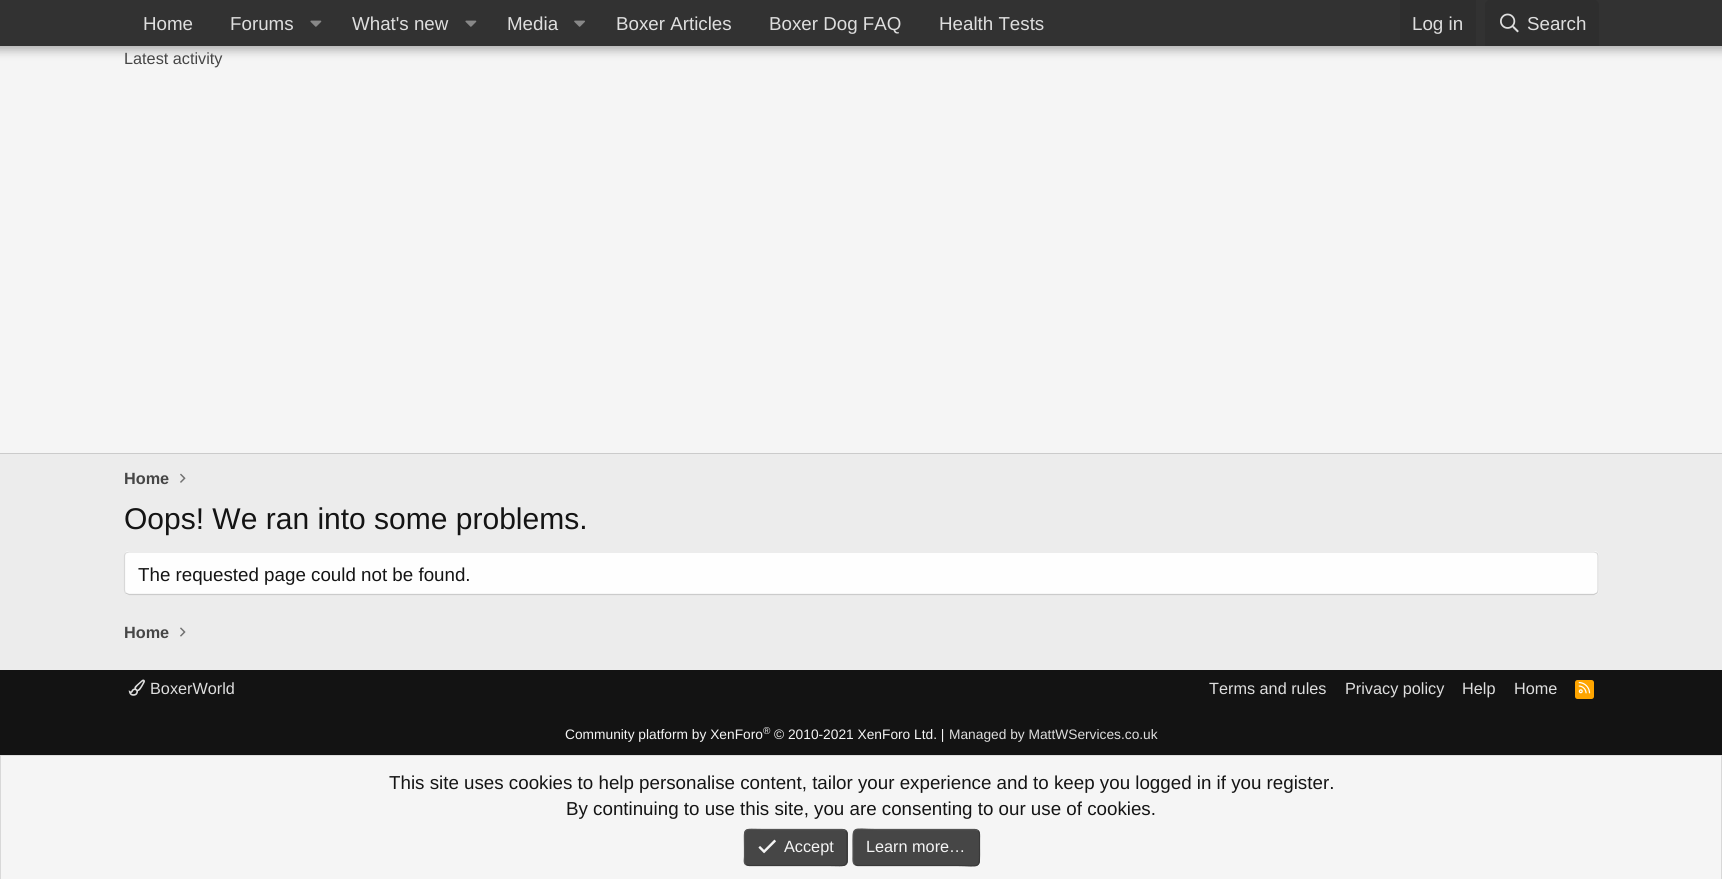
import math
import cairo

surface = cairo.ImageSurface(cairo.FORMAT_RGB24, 1722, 879)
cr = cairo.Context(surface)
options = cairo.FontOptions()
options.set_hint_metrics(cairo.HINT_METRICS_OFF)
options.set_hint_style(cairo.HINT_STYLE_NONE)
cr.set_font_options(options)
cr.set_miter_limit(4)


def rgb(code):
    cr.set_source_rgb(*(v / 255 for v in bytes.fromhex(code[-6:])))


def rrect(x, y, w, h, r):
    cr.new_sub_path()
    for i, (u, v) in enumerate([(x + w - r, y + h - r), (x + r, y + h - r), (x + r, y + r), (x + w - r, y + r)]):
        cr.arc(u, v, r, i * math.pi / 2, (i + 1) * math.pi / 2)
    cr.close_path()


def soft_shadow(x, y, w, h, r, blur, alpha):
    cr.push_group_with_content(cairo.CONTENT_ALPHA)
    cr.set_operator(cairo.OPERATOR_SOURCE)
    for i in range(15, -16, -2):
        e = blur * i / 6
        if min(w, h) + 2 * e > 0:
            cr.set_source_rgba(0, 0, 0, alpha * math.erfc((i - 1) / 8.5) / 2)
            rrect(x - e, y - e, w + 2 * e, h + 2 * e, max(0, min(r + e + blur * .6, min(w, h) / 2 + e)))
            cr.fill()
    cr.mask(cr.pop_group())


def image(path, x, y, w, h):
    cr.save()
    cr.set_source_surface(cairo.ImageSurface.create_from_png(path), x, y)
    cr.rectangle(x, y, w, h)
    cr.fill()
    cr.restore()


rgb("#ececec")
cr.paint()
rgb("#f5f5f5")
cr.rectangle(0, 46, 1722, 407)
cr.fill()
rgb("#000000")
soft_shadow(-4, -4, 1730, 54, 0, 5, 0.3)
rgb("#323232")
cr.rectangle(0, 0, 1722, 46)
cr.fill()
image("img/1.png", 310, 20, 12, 7)
image("img/1.png", 465, 20, 12, 7)
image("img/2.png", 574, 20, 11, 7)
rgb("#2e2e2e")
cr.rectangle(1400, 0, 76, 46)
cr.fill()
cr.new_path()
cr.move_to(1490, 0)
cr.line_to(1594, 0)
cr.curve_to(1597, 0, 1599, 2, 1599, 5)
cr.line_to(1599, 46)
cr.line_to(1485, 46)
cr.line_to(1485, 5)
cr.curve_to(1485, 2, 1487, 0, 1490, 0)
cr.close_path()
cr.fill()
image("img/3.png", 1500, 13, 19, 20)
rgb("#cbcbcb")
cr.rectangle(0, 453, 1722, 1)
cr.fill()
image("img/4.png", 180, 473, 6, 10)
rgb("#fefefe")
rrect(124, 551, 1475, 44, 5)
cr.fill()
cr.new_path()
cr.move_to(125.5, 553)
cr.line_to(129, 552)
cr.line_to(1594, 552)
cr.line_to(1597, 553)
rgb("#dfdfdf")
cr.set_line_width(1.2)
cr.stroke()
cr.new_path()
cr.move_to(1597, 553)
cr.curve_to(1597.5, 554, 1598, 555, 1598, 556)
cr.line_to(1598, 590)
cr.curve_to(1598, 591, 1597.5, 592.5, 1597, 593)
rgb("#d8d8d8")
cr.stroke()
cr.new_path()
cr.move_to(1597, 593)
cr.line_to(1594, 594.5)
cr.line_to(129, 594.5)
cr.line_to(125.5, 593)
rgb("#cbcbcb")
cr.stroke()
cr.new_path()
cr.move_to(125.5, 593)
cr.curve_to(125, 592.5, 124.5, 591, 124.5, 590)
cr.line_to(124.5, 556)
cr.curve_to(124.5, 555, 125, 554, 125.5, 553)
rgb("#d8d8d8")
cr.stroke()
image("img/5.png", 180, 627, 6, 10)
rgb("#131313")
cr.rectangle(0, 670, 1722, 85)
cr.fill()
image("img/6.png", 128, 679, 17, 17)
rgb("#ffa500")
rrect(1575, 680, 19, 19, 2.5)
cr.fill()
image("img/7.png", 1578, 681, 13, 13)
for x, y, w, h, color in [
    (1, 756, 1720, 123, "#f5f5f5"),
    (0, 755, 1722, 1, "#dfdfdf"),
    (1721, 755, 1, 124, "#d8d8d8"),
    (0, 755, 1, 124, "#d8d8d8"),
]:
    rgb(color)
    cr.rectangle(x, y, w, h)
    cr.fill()
rgb("#464646")
rrect(744, 829, 104, 37, 5)
cr.fill()
cr.new_path()
cr.move_to(845.5, 830.5)
cr.curve_to(847.5, 832.5, 847, 836, 847, 838.5)
cr.line_to(847, 847.5)
cr.curve_to(847, 869, 849.5, 865.5, 827, 865.5)
cr.line_to(749, 865.5)
cr.line_to(745.5, 864.5)
rgb("#393939")
cr.stroke()
cr.new_path()
cr.move_to(745.5, 864.5)
cr.curve_to(743.5, 862.5, 744.5, 859, 744.5, 856.5)
cr.line_to(744.5, 847.5)
cr.curve_to(744.5, 826, 741.5, 829.5, 764.5, 829.5)
cr.line_to(842.5, 829.5)
cr.line_to(845.5, 830.5)
rgb("#535353")
cr.stroke()
image("img/8.png", 758, 839, 18, 15)
rgb("#464646")
rrect(853, 829, 127, 37, 5)
cr.fill()
cr.new_path()
cr.move_to(978, 830.5)
cr.curve_to(980, 832.5, 979.5, 836, 979.5, 838.5)
cr.line_to(979.5, 847.5)
cr.curve_to(979.5, 870.5, 981.5, 865.5, 955.5, 865.5)
cr.line_to(857.5, 865.5)
cr.line_to(854.5, 864.5)
rgb("#393939")
cr.stroke()
cr.new_path()
cr.move_to(854.5, 864.5)
cr.curve_to(852.5, 862.5, 853, 859, 853, 856.5)
cr.line_to(853, 847.5)
cr.curve_to(853, 824.5, 851, 829.5, 877, 829.5)
cr.line_to(975, 829.5)
cr.line_to(978, 830.5)
rgb("#535353")
cr.stroke()
cr.select_font_face("Liberation Sans")
cr.set_font_size(18.75)
rgb("#dedede")
for x, y, s in [
    (143, 30, "Home"),
    (230, 30, "Forums"),
    (352, 30, "What's new"),
    (507, 30, "Media"),
    (616, 30, "Boxer Articles"),
    (769, 30, "Boxer Dog FAQ"),
    (939, 30, "Health Tests"),
    (1412, 30, "Log in"),
    (1527, 30, "Search"),
]:
    cr.move_to(x, y)
    cr.show_text(s)
cr.set_font_size(16.25)
rgb("#464646")
cr.move_to(124, 64)
cr.show_text("Latest activity")
cr.select_font_face("Liberation Sans", cairo.FONT_SLANT_NORMAL, cairo.FONT_WEIGHT_BOLD)
cr.move_to(124, 484)
cr.show_text("Home")
cr.select_font_face("Liberation Sans")
cr.set_font_size(30)
rgb("#141414")
cr.move_to(124, 529)
cr.show_text("Oops! We ran into some problems.")
cr.set_font_size(18.75)
cr.move_to(138, 581)
cr.show_text("The requested page could not be found.")
cr.select_font_face("Liberation Sans", cairo.FONT_SLANT_NORMAL, cairo.FONT_WEIGHT_BOLD)
cr.set_font_size(16.25)
rgb("#464646")
cr.move_to(124, 638)
cr.show_text("Home")
cr.select_font_face("Liberation Sans")
rgb("#dedede")
for x, y, s in [
    (150, 694, "BoxerWorld"),
    (1209, 694, "Terms and rules"),
    (1345, 694, "Privacy policy"),
    (1462, 694, "Help"),
    (1514, 694, "Home"),
]:
    cr.move_to(x, y)
    cr.show_text(s)
cr.set_font_size(13.75)
rgb("#f5f5f5")
cr.move_to(565, 739)
cr.show_text("Community platform by XenForo")
cr.set_font_size(10)
cr.move_to(763, 734)
cr.show_text("®")
cr.set_font_size(13.75)
cr.move_to(774, 739)
cr.show_text("© 2010-2021 XenForo Ltd. |")
rgb("#dedede")
cr.move_to(949, 739)
cr.show_text("Managed by MattWServices.co.uk")
cr.set_font_size(18.75)
rgb("#141414")
cr.move_to(389, 789)
cr.show_text("This site uses cookies to help personalise content, tailor your experience and to keep you logged in if you register.")
cr.move_to(566, 815)
cr.show_text("By continuing to use this site, you are consenting to our use of cookies.")
cr.set_font_size(16.25)
rgb("#f5f5f5")
cr.move_to(784, 852)
cr.show_text("Accept")
cr.move_to(866, 852)
cr.show_text("Learn more…")
surface.write_to_png("page.png")
